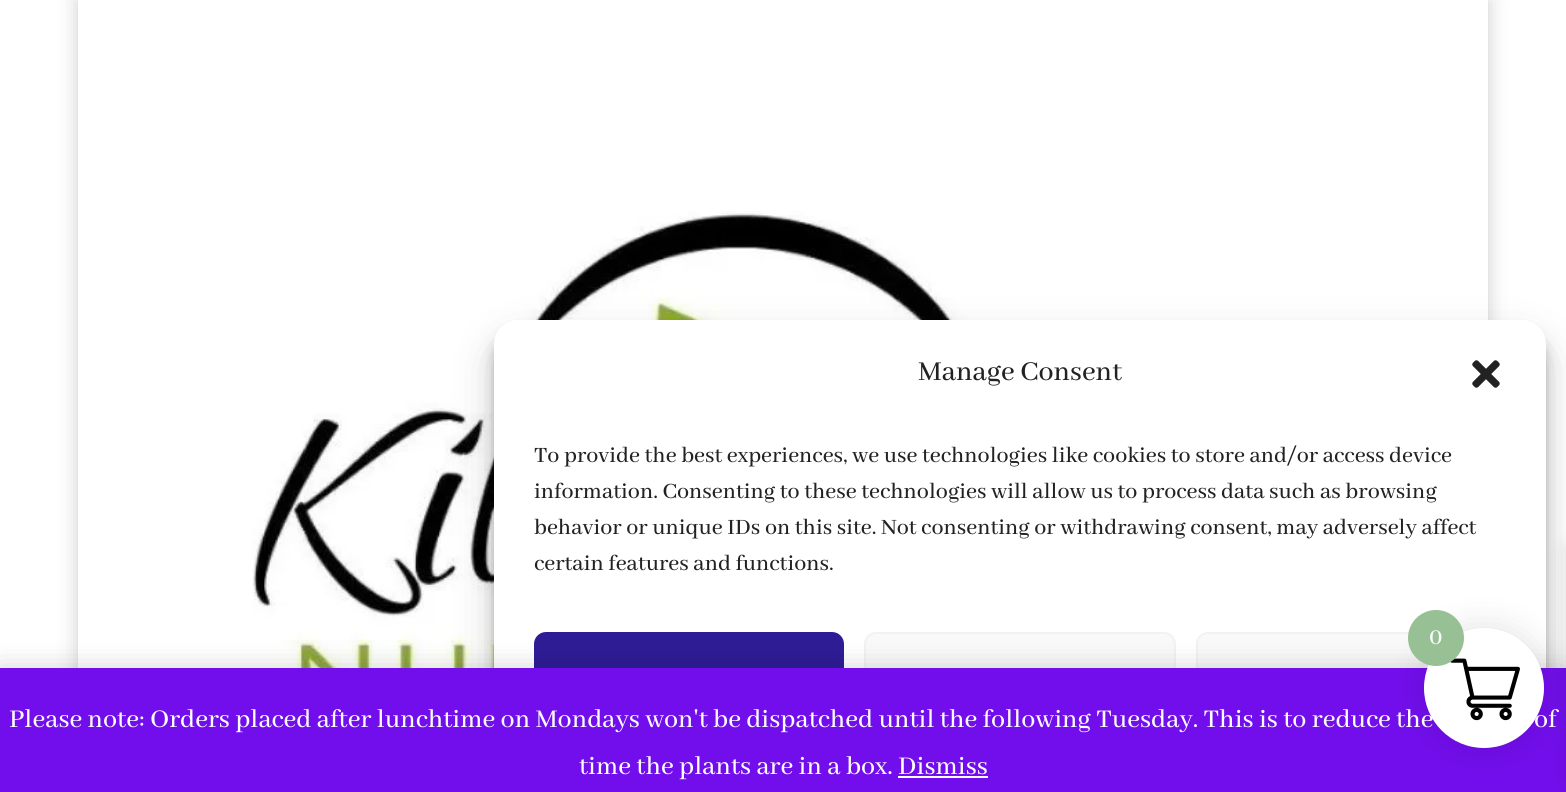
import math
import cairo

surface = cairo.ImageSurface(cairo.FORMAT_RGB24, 1566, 792)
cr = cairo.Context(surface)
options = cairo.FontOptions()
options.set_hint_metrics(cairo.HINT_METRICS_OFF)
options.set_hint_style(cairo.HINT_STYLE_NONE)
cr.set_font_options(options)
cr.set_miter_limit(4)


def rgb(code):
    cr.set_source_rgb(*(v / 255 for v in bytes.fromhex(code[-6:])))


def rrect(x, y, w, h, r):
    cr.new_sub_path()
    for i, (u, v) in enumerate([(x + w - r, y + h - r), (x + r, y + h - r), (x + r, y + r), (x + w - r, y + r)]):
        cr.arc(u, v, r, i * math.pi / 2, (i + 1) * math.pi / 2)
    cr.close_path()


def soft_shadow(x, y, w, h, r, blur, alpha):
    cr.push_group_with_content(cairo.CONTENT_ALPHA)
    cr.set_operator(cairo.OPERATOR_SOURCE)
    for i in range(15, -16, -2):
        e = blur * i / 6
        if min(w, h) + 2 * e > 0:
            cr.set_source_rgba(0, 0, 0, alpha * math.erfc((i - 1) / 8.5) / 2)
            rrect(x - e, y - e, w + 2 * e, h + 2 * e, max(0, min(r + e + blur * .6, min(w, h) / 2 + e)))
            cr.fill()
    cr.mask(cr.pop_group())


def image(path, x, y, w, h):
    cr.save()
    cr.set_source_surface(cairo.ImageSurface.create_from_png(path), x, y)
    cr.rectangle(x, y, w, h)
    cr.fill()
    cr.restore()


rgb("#ffffff")
cr.paint()
cr.save()
cr.set_fill_rule(cairo.FILL_RULE_EVEN_ODD)
cr.new_path()
cr.move_to(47, 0)
cr.line_to(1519, 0)
cr.line_to(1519, 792)
cr.line_to(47, 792)
cr.close_path()
cr.move_to(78, 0)
cr.line_to(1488, 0)
cr.line_to(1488, 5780)
cr.line_to(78, 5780)
cr.close_path()
cr.clip()
rgb("#000000")
soft_shadow(78, 0, 1410, 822, 0, 10, 0.2)
cr.restore()
image("img/1.png", 252, 211, 862, 457)
rgb("#000000")
soft_shadow(494, 332, 1052, 452, 24, 6, 0.23)
soft_shadow(494, 340, 1052, 452, 24, 20, 0.19)
rgb("#ffffff")
rrect(494, 320, 1052, 452, 24)
cr.fill()
image("img/2.png", 1472, 360, 28, 28)
rgb("#2e1c96")
rrect(535, 633, 308, 88, 11)
cr.fill_preserve()
cr.stroke()
rgb("#f9f9f9")
rrect(865, 633, 310, 88, 11)
cr.fill_preserve()
rgb("#f2f2f2")
cr.stroke()
rgb("#f9f9f9")
rrect(1197, 633, 308, 88, 11)
cr.fill_preserve()
rgb("#f2f2f2")
cr.stroke()
rgb("#000000")
soft_shadow(0, 670, 1566, 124, 0, 14, 0.2)
rgb("#720eec")
cr.rectangle(0, 668, 1566, 124)
cr.fill()
rgb("#000000")
soft_shadow(1420, 624, 128, 128, 64, 15, 0.1)
soft_shadow(1566, 548, 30, 234, 0, 10, 0.1)
rgb("#fcfbfe")
cr.rectangle(898, 776, 90, 2)
cr.fill()
cr.select_font_face("Abhaya Libre Medium Medium")
cr.set_font_size(30)
rgb("#222222")
cr.move_to(918, 380)
cr.show_text("Manage Consent")
cr.set_font_size(24)
for x, y, s in [
    (534, 462, "To provide the best experiences, we use technologies like cookies to store and/or access device"),
    (534, 498, "information. Consenting to these technologies will allow us to process data such as browsing"),
    (534, 534, "behavior or unique IDs on this site. Not consenting or withdrawing consent, may adversely affect"),
    (534, 570, "certain features and functions."),
]:
    cr.move_to(x, y)
    cr.show_text(s)
cr.set_font_size(28)
rgb("#fcfbfe")
cr.move_to(9, 727)
cr.show_text("Please note: Orders placed after lunchtime on Mondays won't be dispatched until the following Tuesday. This is to reduce the")
cr.move_to(1534, 727)
cr.show_text("of")
rgb("#ffffff")
cr.new_path()
cr.arc(1484, 688, 60, 0, 2 * math.pi)
cr.fill()
image("img/3.png", 1450, 658, 70, 63)
rgb("#97c195")
cr.arc(1436, 638, 28, 0, 2 * math.pi)
cr.fill()
cr.set_font_size(26)
rgb("#fcfbfe")
cr.move_to(1429, 644)
cr.show_text("0")
cr.set_font_size(28)
cr.move_to(579, 774)
cr.show_text("time the plants are in a box. Dismiss")
surface.write_to_png("page.png")
